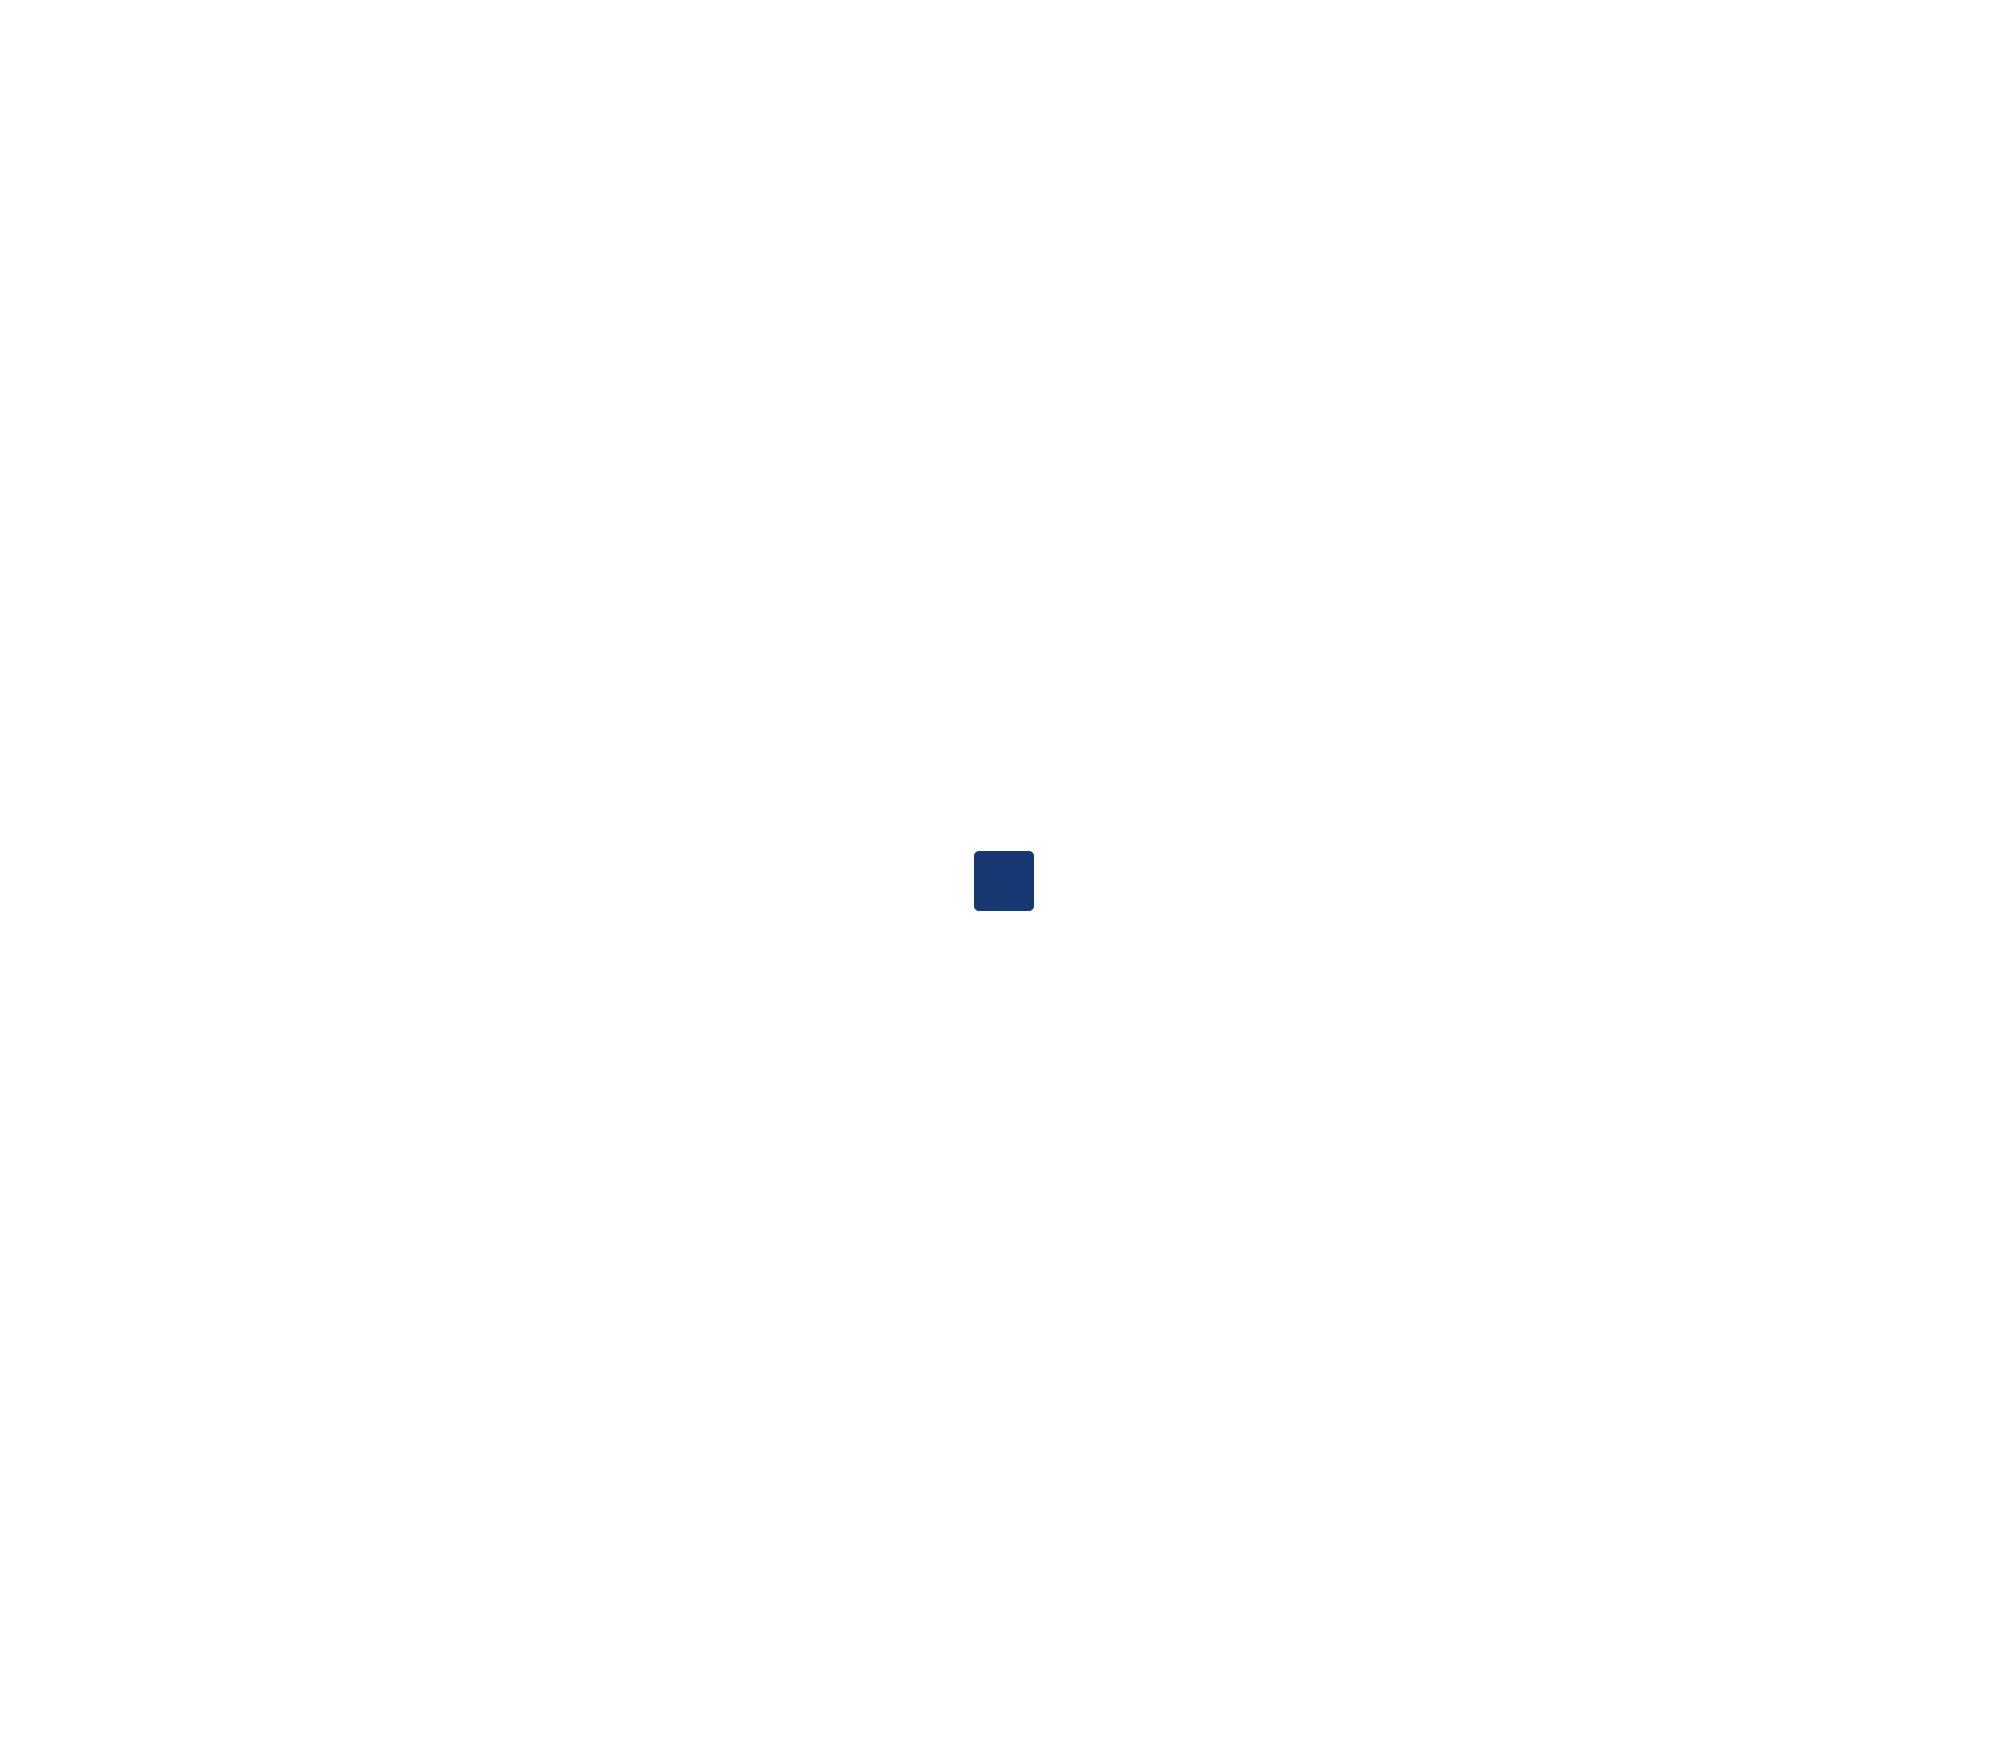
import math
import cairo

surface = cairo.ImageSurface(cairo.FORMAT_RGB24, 2006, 1759)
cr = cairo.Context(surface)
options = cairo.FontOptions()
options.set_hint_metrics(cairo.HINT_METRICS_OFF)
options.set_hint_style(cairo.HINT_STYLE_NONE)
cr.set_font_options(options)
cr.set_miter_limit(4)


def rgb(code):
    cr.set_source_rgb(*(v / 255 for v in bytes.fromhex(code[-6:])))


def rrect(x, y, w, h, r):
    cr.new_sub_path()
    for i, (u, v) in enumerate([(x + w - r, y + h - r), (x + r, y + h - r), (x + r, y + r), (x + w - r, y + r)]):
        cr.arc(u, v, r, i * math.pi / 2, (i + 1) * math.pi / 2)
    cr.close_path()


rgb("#ffffff")
cr.paint()
rgb("#173872")
rrect(974, 851, 60, 60, 5)
cr.fill()
surface.write_to_png("page.png")
